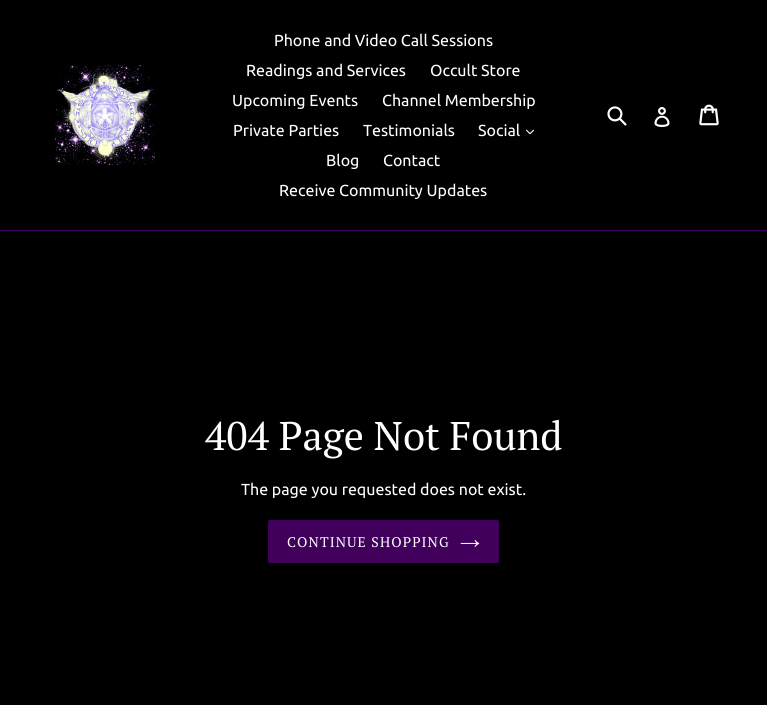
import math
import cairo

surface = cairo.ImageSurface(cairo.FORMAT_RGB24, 767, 705)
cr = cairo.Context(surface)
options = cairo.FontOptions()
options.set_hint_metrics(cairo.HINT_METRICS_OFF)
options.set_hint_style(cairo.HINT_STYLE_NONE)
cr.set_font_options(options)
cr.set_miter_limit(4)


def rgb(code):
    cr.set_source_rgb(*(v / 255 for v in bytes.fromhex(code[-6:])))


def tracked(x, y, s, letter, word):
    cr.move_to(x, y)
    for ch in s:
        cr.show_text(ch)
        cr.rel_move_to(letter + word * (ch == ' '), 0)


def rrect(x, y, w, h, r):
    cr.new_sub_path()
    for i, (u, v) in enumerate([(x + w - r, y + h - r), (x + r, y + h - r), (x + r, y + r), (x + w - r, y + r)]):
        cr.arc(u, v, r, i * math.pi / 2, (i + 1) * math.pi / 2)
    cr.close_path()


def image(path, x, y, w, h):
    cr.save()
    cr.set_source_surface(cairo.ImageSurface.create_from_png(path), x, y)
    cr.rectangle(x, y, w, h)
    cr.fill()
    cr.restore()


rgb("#000000")
cr.paint()
rgb("#40005b")
cr.rectangle(0, 230, 767, 1)
cr.fill()
image("img/1.png", 55, 65, 100, 100)
image("img/2.png", 526, 129, 8, 6)
image("img/3.png", 607, 106, 20, 20)
image("img/4.png", 654, 107, 16, 20)
image("img/5.png", 699, 104, 20, 22)
rrect(268, 520, 231, 43, 2)
cr.fill()
image("img/6.png", 460, 539, 20, 8)
cr.select_font_face("Ubuntu")
cr.set_font_size(16)
rgb("#ffffff")
for x, y, s in [
    (274, 46, "Phone and Video Call Sessions"),
    (246, 76, "Readings and Services"),
    (430, 76, "Occult Store"),
    (232, 106, "Upcoming Events"),
    (382, 106, "Channel Membership"),
    (233, 136, "Private Parties"),
    (363, 136, "Testimonials"),
    (478, 136, "Social"),
    (326, 166, "Blog"),
    (383, 166, "Contact"),
    (279, 196, "Receive Community Updates"),
]:
    cr.move_to(x, y)
    cr.show_text(s)
cr.select_font_face("PT Serif")
cr.set_font_size(40)
cr.move_to(205, 450)
cr.show_text("404 Page Not Found")
cr.select_font_face("Ubuntu")
cr.set_font_size(16)
cr.move_to(241, 495)
cr.show_text("The page you requested does not exist.")
cr.select_font_face("PT Serif")
cr.set_font_size(14)
tracked(287, 547, "CONTINUE SHOPPING", 1.1, 0)
surface.write_to_png("page.png")
